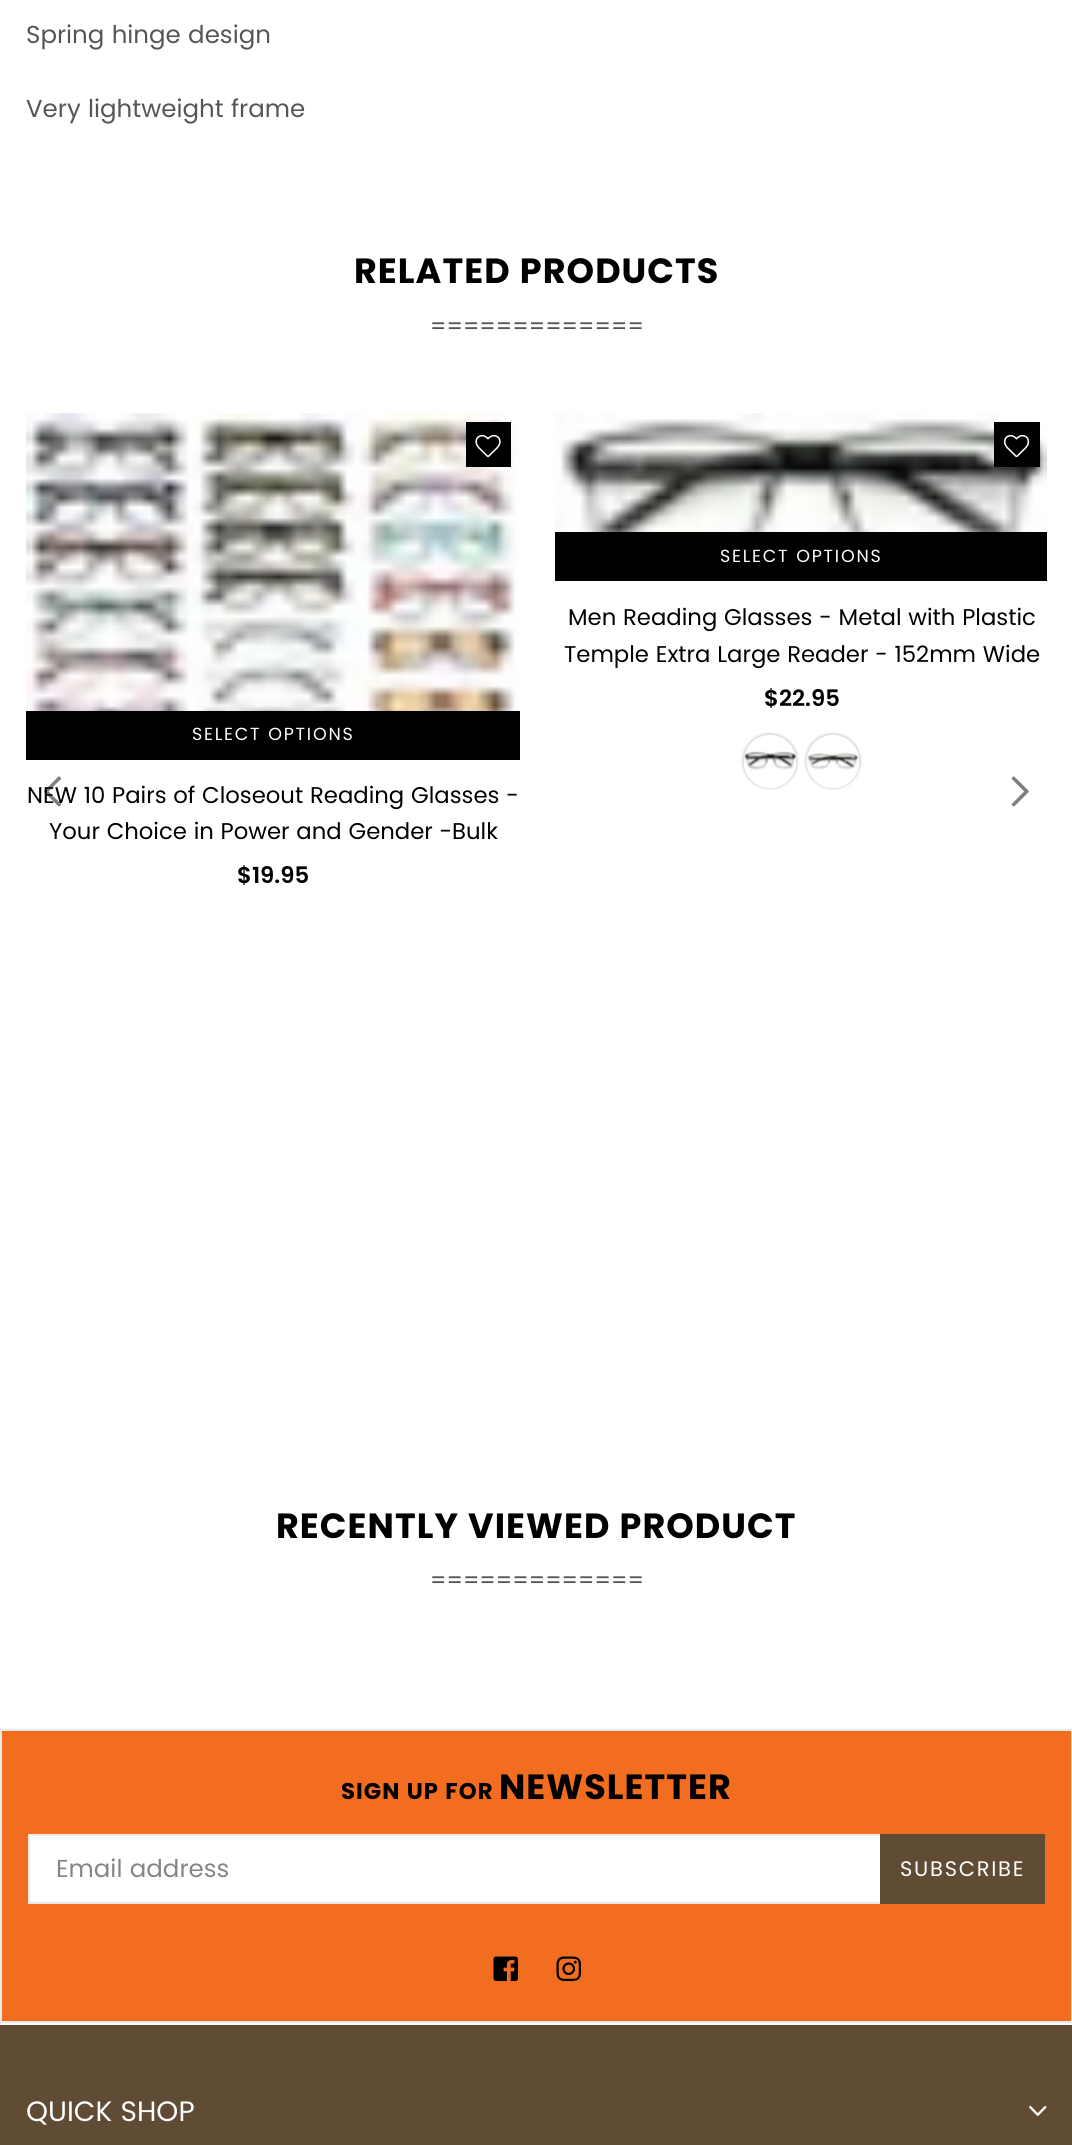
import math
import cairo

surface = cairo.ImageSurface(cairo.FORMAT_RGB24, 1072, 2145)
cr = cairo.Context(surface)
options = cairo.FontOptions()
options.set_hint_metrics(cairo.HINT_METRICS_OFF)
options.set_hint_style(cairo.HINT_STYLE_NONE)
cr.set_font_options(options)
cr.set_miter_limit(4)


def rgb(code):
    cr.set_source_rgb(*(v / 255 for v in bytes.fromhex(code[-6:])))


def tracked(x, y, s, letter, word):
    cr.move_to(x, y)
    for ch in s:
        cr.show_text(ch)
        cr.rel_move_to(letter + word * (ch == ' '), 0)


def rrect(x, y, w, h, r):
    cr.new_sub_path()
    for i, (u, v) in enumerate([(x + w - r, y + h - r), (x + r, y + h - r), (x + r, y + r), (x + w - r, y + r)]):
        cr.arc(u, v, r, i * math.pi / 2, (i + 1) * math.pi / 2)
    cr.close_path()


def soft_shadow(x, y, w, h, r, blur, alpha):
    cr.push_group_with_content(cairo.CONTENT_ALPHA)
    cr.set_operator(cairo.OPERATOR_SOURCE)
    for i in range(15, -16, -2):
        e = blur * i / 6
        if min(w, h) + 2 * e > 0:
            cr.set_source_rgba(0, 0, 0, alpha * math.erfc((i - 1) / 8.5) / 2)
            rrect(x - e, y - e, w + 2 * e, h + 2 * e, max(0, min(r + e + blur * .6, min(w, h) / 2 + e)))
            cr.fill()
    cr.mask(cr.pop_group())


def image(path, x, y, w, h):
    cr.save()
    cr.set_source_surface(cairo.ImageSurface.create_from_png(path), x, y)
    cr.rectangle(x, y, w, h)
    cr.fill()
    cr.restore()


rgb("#ffffff")
cr.paint()
image("img/1.png", 555, 413, 492, 119)
rgb("#000000")
cr.rectangle(994, 422, 46, 45)
cr.fill()
image("img/2.png", 1003, 434, 27, 24)
cr.rectangle(555, 532, 492, 49)
cr.fill()
cr.save()
cr.set_fill_rule(cairo.FILL_RULE_EVEN_ODD)
cr.new_path()
cr.move_to(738, 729)
cr.line_to(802, 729)
cr.line_to(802, 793)
cr.line_to(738, 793)
cr.close_path()
cr.move_to(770, 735)
cr.curve_to(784.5, 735, 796, 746.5, 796, 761)
cr.line_to(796, 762)
cr.curve_to(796, 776.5, 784.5, 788, 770, 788)
cr.curve_to(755.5, 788, 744, 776.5, 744, 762)
cr.line_to(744, 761)
cr.curve_to(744, 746.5, 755.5, 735, 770, 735)
cr.close_path()
cr.clip()
rgb("#dddddd")
soft_shadow(742, 733, 56, 56, 28, 1, 1)
cr.restore()
image("img/3.png", 743, 751, 53, 20)
cr.save()
cr.set_fill_rule(cairo.FILL_RULE_EVEN_ODD)
cr.new_path()
cr.move_to(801, 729)
cr.line_to(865, 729)
cr.line_to(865, 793)
cr.line_to(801, 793)
cr.close_path()
cr.move_to(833, 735)
cr.curve_to(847.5, 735, 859, 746.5, 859, 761)
cr.line_to(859, 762)
cr.curve_to(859, 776.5, 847.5, 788, 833, 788)
cr.curve_to(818.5, 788, 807, 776.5, 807, 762)
cr.line_to(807, 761)
cr.curve_to(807, 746.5, 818.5, 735, 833, 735)
cr.close_path()
cr.clip()
rgb("#dddddd")
soft_shadow(805, 733, 56, 56, 28, 1, 1)
cr.restore()
image("img/4.png", 806, 752, 53, 19)
image("img/5.png", 26, 413, 493, 298)
cr.rectangle(466, 422, 45, 45)
cr.fill()
image("img/6.png", 475, 434, 26, 24)
cr.rectangle(26, 711, 494, 49)
cr.fill()
image("img/8.png", 1011, 776, 18, 31)
rgb("#f26d20")
cr.rectangle(1, 1730, 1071, 292)
cr.fill_preserve()
rgb("#e8e9eb")
cr.stroke()
for x, y, w, h, color in [
    (30, 1836, 850, 66, "#ffffff"),
    (28, 1834, 852, 2, "#e8e9eb"),
    (28, 1902, 852, 2, "#e8e9eb"),
    (28, 1834, 2, 70, "#e8e9eb"),
    (880, 1834, 165, 70, "#604c34"),
]:
    rgb(color)
    cr.rectangle(x, y, w, h)
    cr.fill()
image("img/9.png", 493, 1956, 25, 25)
image("img/10.png", 556, 1956, 25, 25)
cr.rectangle(0, 2025, 1072, 120)
cr.fill()
image("img/11.png", 1029, 2105, 18, 11)
cr.select_font_face("Poppins")
cr.set_font_size(24.5)
rgb("#555555")
cr.move_to(26, 43)
cr.show_text("Spring hinge design")
cr.move_to(26, 117)
cr.show_text("Very lightweight frame")
cr.select_font_face("Poppins", cairo.FONT_SLANT_NORMAL, cairo.FONT_WEIGHT_BOLD)
cr.set_font_size(35)
rgb("#000000")
tracked(354, 283, "RELATED PRODUCTS", 1.05, 0)
cr.select_font_face("Poppins")
cr.set_font_size(22.75)
rgb("#555555")
cr.move_to(430, 334)
cr.show_text("=============")
cr.set_font_size(17.5)
rgb("#ffffff")
tracked(720, 562, "SELECT OPTIONS", 1.75, 0)
cr.set_font_size(22.75)
rgb("#000000")
cr.move_to(568, 625)
cr.show_text("Men Reading Glasses - Metal with Plastic")
cr.move_to(564, 662)
cr.show_text("Temple Extra Large Reader - 152mm Wide")
cr.select_font_face("Poppins SemiBold")
cr.move_to(764, 706)
cr.show_text("$22.95")
cr.select_font_face("Poppins")
cr.set_font_size(17.5)
rgb("#ffffff")
tracked(192, 740, "SELECT OPTIONS", 1.75, 0)
cr.set_font_size(22.75)
rgb("#000000")
cr.move_to(27, 803)
cr.show_text("NEW 10 Pairs of Closeout Reading Glasses -")
cr.move_to(49, 839)
cr.show_text("Your Choice in Power and Gender -Bulk")
cr.select_font_face("Poppins SemiBold")
cr.move_to(237, 883)
cr.show_text("$19.95")
image("img/7.png", 43, 776, 19, 31)
cr.select_font_face("Poppins", cairo.FONT_SLANT_NORMAL, cairo.FONT_WEIGHT_BOLD)
cr.set_font_size(35)
tracked(276, 1538, "RECENTLY VIEWED PRODUCT", 1.05, 0)
cr.select_font_face("Poppins")
cr.set_font_size(22.75)
rgb("#555555")
cr.move_to(430, 1588)
cr.show_text("=============")
cr.select_font_face("Poppins", cairo.FONT_SLANT_NORMAL, cairo.FONT_WEIGHT_BOLD)
rgb("#000000")
tracked(341, 1799, "SIGN UP FOR", 1.05, 0)
cr.set_font_size(35)
tracked(499, 1799, "NEWSLETTER", 1.05, 0)
cr.select_font_face("Poppins")
cr.set_font_size(24.5)
rgb("#858585")
cr.move_to(56, 1877)
cr.show_text("Email address")
cr.set_font_size(21)
rgb("#ffffff")
tracked(900, 1876, "SUBSCRIBE", 1.75, 0)
cr.set_font_size(28)
cr.move_to(26, 2121)
cr.show_text("QUICK SHOP")
surface.write_to_png("page.png")
